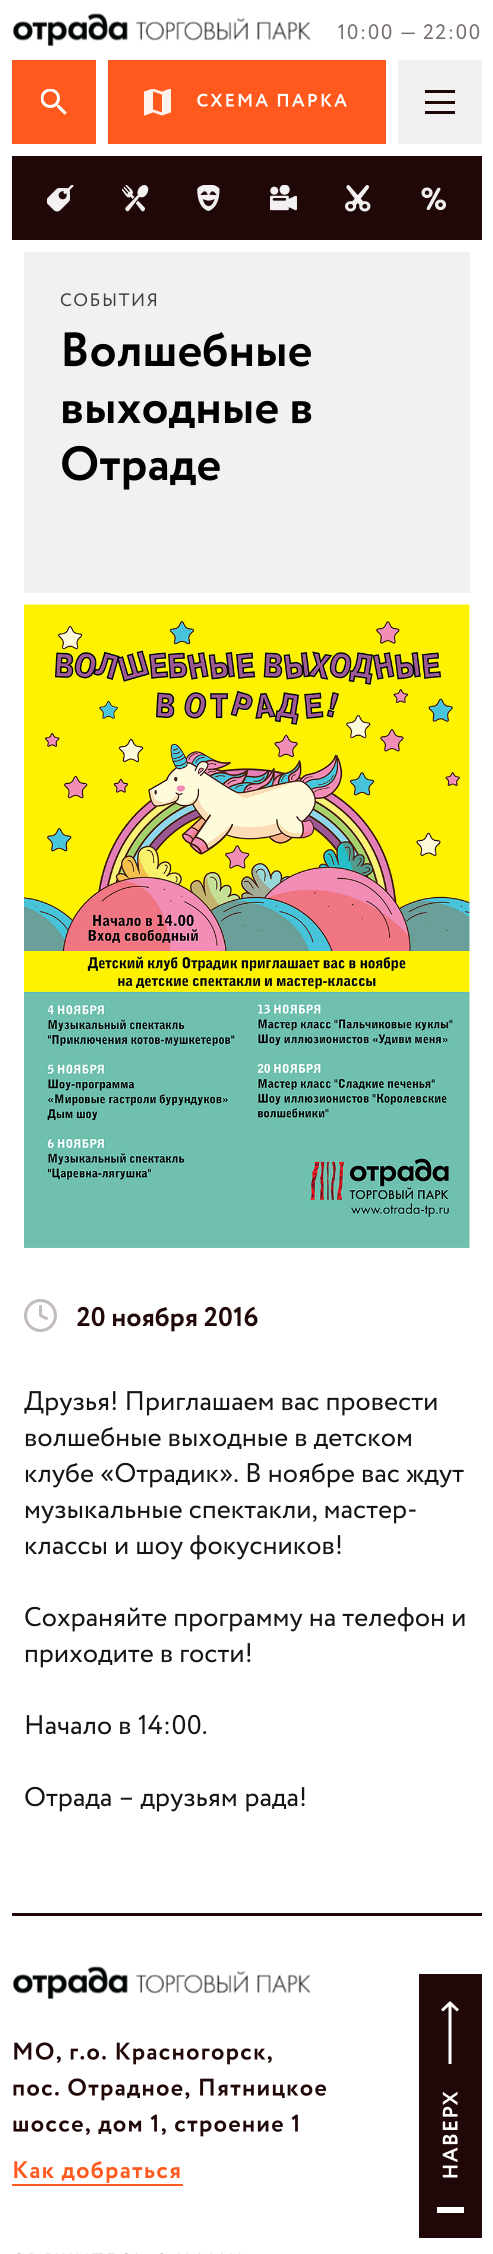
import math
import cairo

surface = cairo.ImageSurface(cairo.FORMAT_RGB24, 493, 2254)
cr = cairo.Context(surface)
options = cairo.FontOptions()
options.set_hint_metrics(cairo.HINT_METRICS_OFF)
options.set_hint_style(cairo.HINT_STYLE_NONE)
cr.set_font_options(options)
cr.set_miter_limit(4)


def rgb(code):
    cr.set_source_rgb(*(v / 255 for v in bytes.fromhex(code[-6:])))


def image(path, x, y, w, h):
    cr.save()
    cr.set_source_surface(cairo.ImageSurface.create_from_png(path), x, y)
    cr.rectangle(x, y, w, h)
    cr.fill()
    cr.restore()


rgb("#ffffff")
cr.paint()
image("img/1.png", 12, 13, 299, 34)
image("img/2.png", 338, 24, 77, 16)
image("img/3.png", 423, 24, 57, 16)
for x, y, w, h, color in [
    (398, 60, 84, 84, "#f2f0f0"),
    (425, 101, 30, 3, "#210808"),
    (425, 90, 30, 3, "#210808"),
    (425, 111, 30, 3, "#210808"),
    (12, 60, 84, 84, "#ff591d"),
]:
    rgb(color)
    cr.rectangle(x, y, w, h)
    cr.fill()
image("img/4.png", 41, 89, 26, 26)
cr.rectangle(108, 60, 278, 84)
cr.fill()
image("img/5.png", 144, 89, 27, 27)
image("img/6.png", 197, 93, 150, 14)
rgb("#210808")
cr.rectangle(12, 156, 470, 84)
cr.fill()
image("img/7.png", 47, 185, 27, 27)
image("img/8.png", 122, 185, 27, 27)
image("img/9.png", 197, 185, 23, 26)
image("img/10.png", 270, 185, 27, 26)
image("img/11.png", 345, 185, 26, 27)
image("img/12.png", 421, 187, 26, 24)
rgb("#f2f0f0")
cr.rectangle(24, 252, 446, 341)
cr.fill()
image("img/13.png", 60, 293, 97, 14)
image("img/14.png", 64, 332, 247, 35)
image("img/15.png", 63, 400, 249, 29)
image("img/16.png", 62, 445, 158, 45)
image("img/17.png", 24, 604, 446, 644)
image("img/18.png", 24, 1299, 33, 33)
image("img/19.png", 77, 1306, 181, 26)
image("img/20.png", 24, 1391, 413, 25)
image("img/21.png", 25, 1426, 386, 23)
image("img/22.png", 25, 1462, 439, 26)
image("img/23.png", 25, 1505, 391, 19)
image("img/24.png", 25, 1535, 316, 25)
image("img/25.png", 25, 1606, 440, 26)
image("img/26.png", 25, 1643, 226, 25)
image("img/27.png", 26, 1714, 181, 21)
image("img/28.png", 25, 1786, 211, 26)
image("img/29.png", 246, 1787, 59, 25)
rgb("#210808")
cr.rectangle(12, 1913, 470, 3)
cr.fill()
image("img/30.png", 12, 1966, 299, 34)
image("img/31.png", 14, 2042, 258, 23)
image("img/32.png", 13, 2078, 314, 23)
image("img/33.png", 13, 2114, 285, 23)
image("img/34.png", 14, 2161, 40, 18)
image("img/35.png", 61, 2161, 119, 22)
rgb("#ff591d")
cr.rectangle(12, 2184, 171, 2)
cr.fill()
rgb("#210808")
cr.rectangle(419, 1974, 63, 264)
cr.fill()
image("img/36.png", 437, 2001, 27, 212)
image("img/37.png", 17, 2253, 121, 1)
image("img/38.png", 160, 2253, 81, 1)
surface.write_to_png("page.png")
